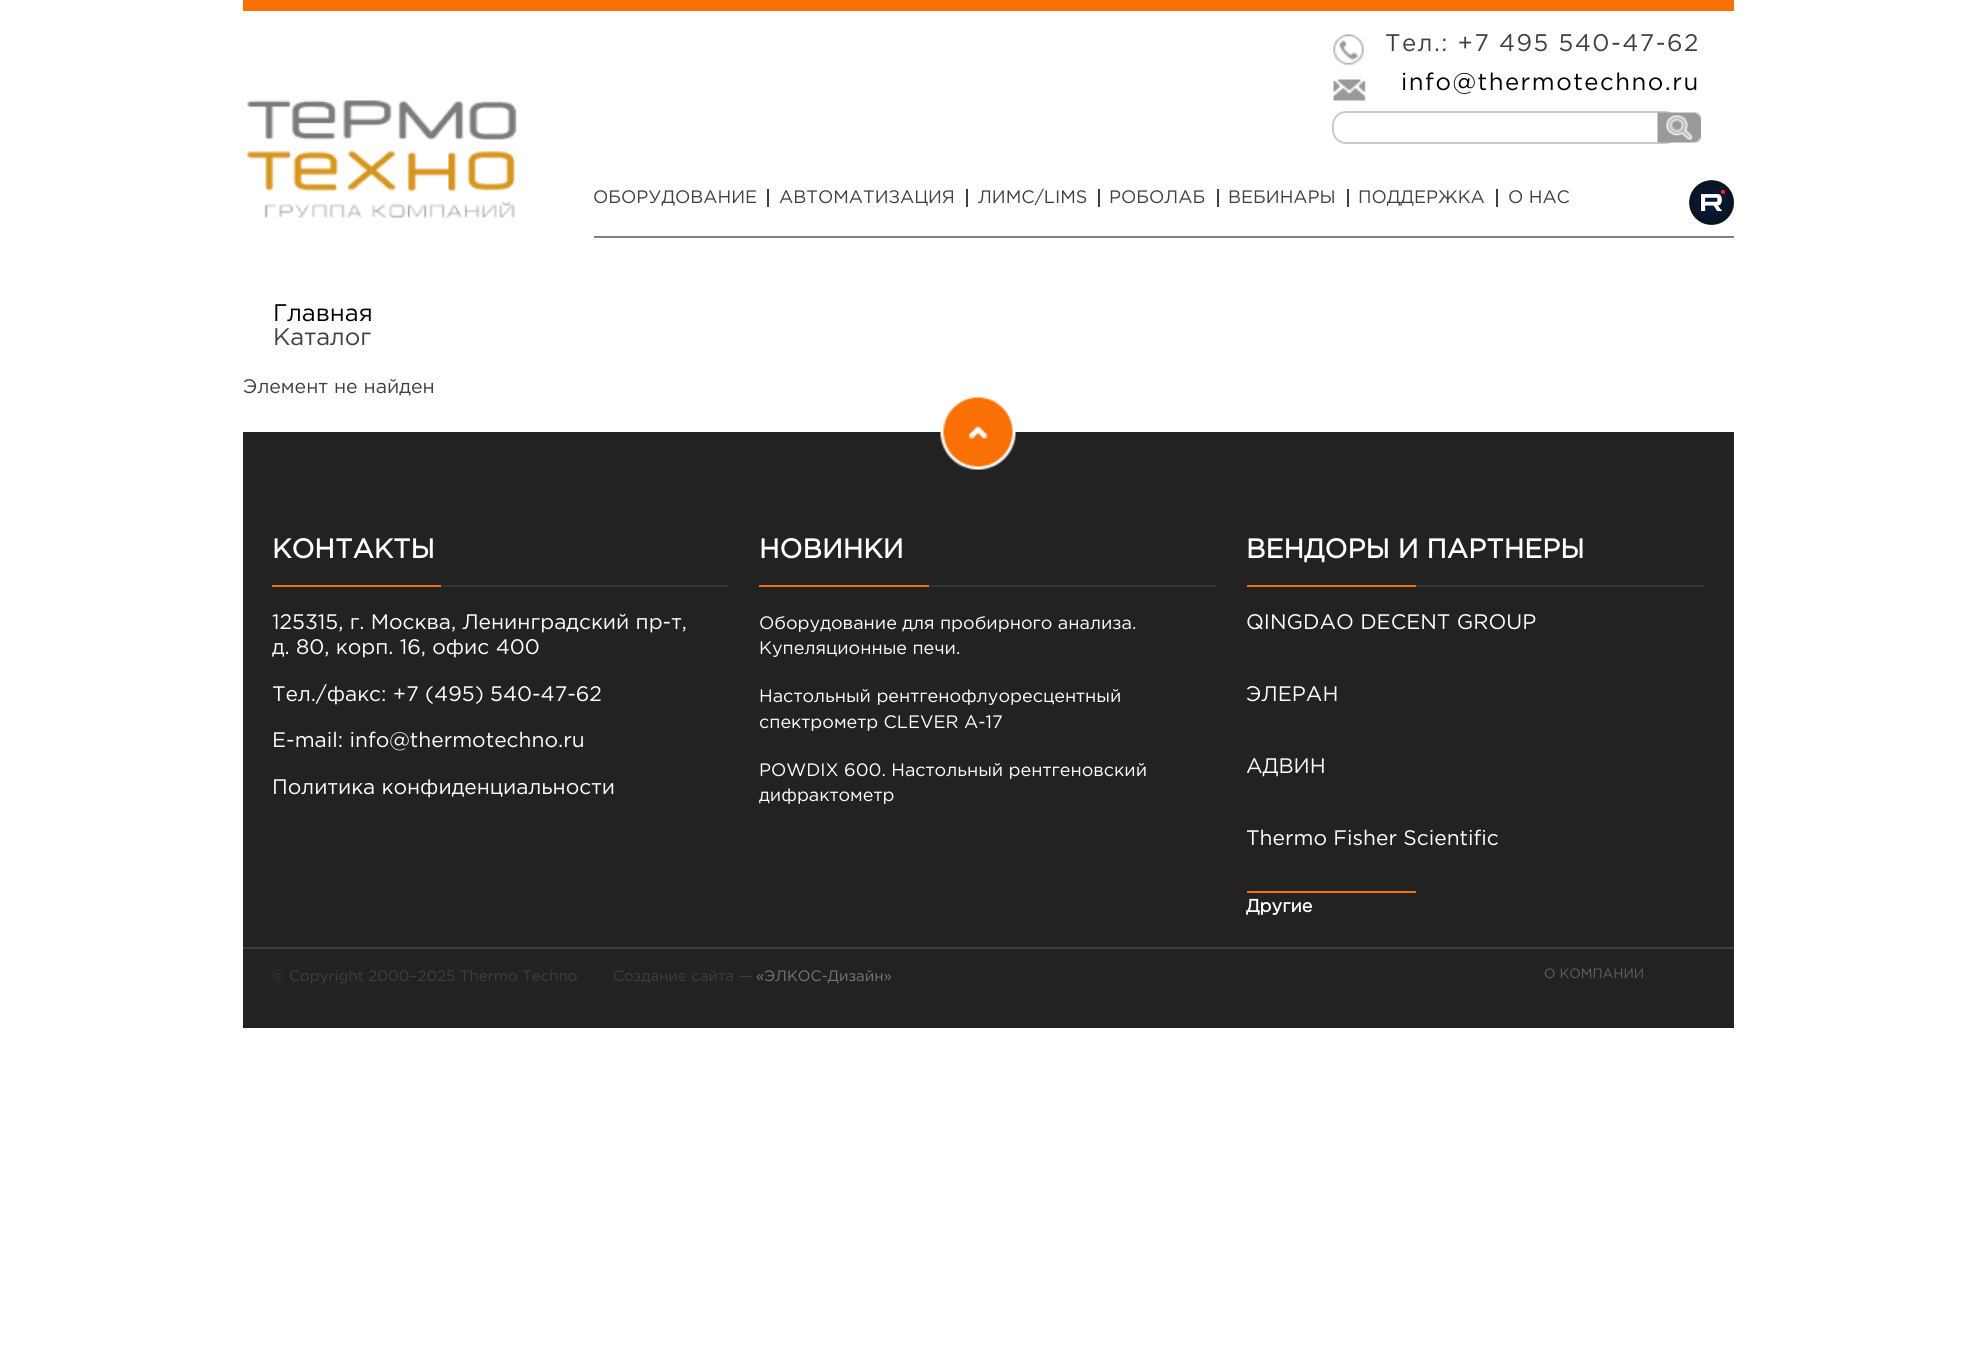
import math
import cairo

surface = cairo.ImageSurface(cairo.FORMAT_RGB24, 1976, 1351)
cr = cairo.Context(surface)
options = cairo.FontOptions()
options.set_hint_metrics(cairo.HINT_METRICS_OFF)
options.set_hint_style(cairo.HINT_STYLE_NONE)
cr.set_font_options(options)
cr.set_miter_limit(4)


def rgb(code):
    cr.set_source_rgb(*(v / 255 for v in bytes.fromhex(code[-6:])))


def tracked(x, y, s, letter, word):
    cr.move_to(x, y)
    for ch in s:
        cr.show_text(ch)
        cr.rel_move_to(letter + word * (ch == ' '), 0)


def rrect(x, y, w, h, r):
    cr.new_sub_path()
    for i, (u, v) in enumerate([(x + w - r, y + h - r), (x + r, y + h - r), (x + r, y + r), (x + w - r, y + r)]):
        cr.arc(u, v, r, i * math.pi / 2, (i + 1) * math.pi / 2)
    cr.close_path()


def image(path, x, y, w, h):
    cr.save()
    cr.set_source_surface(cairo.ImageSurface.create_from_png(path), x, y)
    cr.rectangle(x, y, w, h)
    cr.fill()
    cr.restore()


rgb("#ffffff")
cr.paint()
rgb("#f97105")
cr.rectangle(243, 0, 1491, 11)
cr.fill()
image("img/1.png", 1333, 34, 31, 31)
image("img/2.png", 1333, 79, 33, 22)
rrect(1333, 112, 345, 31, 13)
rgb("#cacaca")
cr.stroke()
image("img/3.png", 1657, 112, 44, 31)
image("img/4.png", 247, 100, 270, 118)
for x, y, w, h, color in [
    (767, 189, 2, 18, "#3f3f3f"),
    (966, 189, 2, 18, "#3f3f3f"),
    (1098, 189, 2, 18, "#3f3f3f"),
    (1217, 189, 2, 18, "#3f3f3f"),
    (1347, 189, 2, 18, "#3f3f3f"),
    (1496, 189, 2, 18, "#3f3f3f"),
]:
    rgb(color)
    cr.rectangle(x, y, w, h)
    cr.fill()
image("img/5.png", 1689, 180, 45, 45)
rgb("#808080")
cr.rectangle(594, 236, 1140, 2)
cr.fill()
rgb("#222222")
cr.rectangle(243, 432, 1491, 596)
cr.fill()
image("img/6.png", 940, 397, 76, 73)
for x, y, w, h, color in [
    (441, 585, 288, 2, "#333333"),
    (272, 585, 169, 2, "#f97105"),
    (929, 585, 288, 2, "#333333"),
    (759, 585, 170, 2, "#f97105"),
    (1416, 585, 288, 2, "#333333"),
    (1247, 585, 169, 2, "#f97105"),
    (1247, 891, 169, 2, "#f97105"),
    (243, 947, 1491, 2, "#3f3f3f"),
]:
    rgb(color)
    cr.rectangle(x, y, w, h)
    cr.fill()
cr.select_font_face("Gotham")
cr.set_font_size(24)
tracked(1385, 51, "Тел.: +7 495 540-47-62", 1.5, 0)
rgb("#000000")
tracked(1401, 90, "info@thermotechno.ru", 1.5, 0)
cr.set_font_size(18)
rgb("#3f3f3f")
for x, y, s in [
    (593, 203, "ОБОРУДОВАНИЕ"),
    (779, 203, "АВТОМАТИЗАЦИЯ"),
    (978, 203, "ЛИМС/LIMS"),
    (1109, 203, "РОБОЛАБ"),
    (1228, 203, "ВЕБИНАРЫ"),
    (1358, 203, "ПОДДЕРЖКА"),
    (1508, 203, "О НАС"),
]:
    cr.move_to(x, y)
    cr.show_text(s)
cr.set_font_size(24)
rgb("#000000")
cr.move_to(273, 321)
cr.show_text("Главная")
rgb("#3f3f3f")
cr.move_to(273, 345)
cr.show_text("Каталог")
cr.set_font_size(19.5)
cr.move_to(243, 393)
cr.show_text("Элемент не найден")
cr.select_font_face("Gotham", cairo.FONT_SLANT_NORMAL, cairo.FONT_WEIGHT_BOLD)
cr.set_font_size(27)
rgb("#ffffff")
cr.move_to(272, 558)
cr.show_text("КОНТАКТЫ")
cr.select_font_face("Gotham")
cr.set_font_size(21)
for x, y, s in [
    (272, 629, "125315, г. Москва, Ленинградский пр-т,"),
    (272, 654, "д. 80, корп. 16, офис 400"),
    (272, 701, "Тел./факс: +7 (495) 540-47-62"),
    (272, 747, "E-mail: info@thermotechno.ru"),
    (272, 794, "Политика конфиденциальности"),
]:
    cr.move_to(x, y)
    cr.show_text(s)
cr.select_font_face("Gotham", cairo.FONT_SLANT_NORMAL, cairo.FONT_WEIGHT_BOLD)
cr.set_font_size(27)
cr.move_to(759, 558)
cr.show_text("НОВИНКИ")
cr.select_font_face("Gotham")
cr.set_font_size(18)
for x, y, s in [
    (759, 629, "Оборудование для пробирного анализа."),
    (759, 654, "Купеляционные печи."),
    (759, 702, "Настольный рентгенофлуоресцентный"),
    (759, 728, "спектрометр CLEVER A-17"),
    (759, 776, "POWDIX 600. Настольный рентгеновский"),
    (759, 801, "дифрактометр"),
]:
    cr.move_to(x, y)
    cr.show_text(s)
cr.select_font_face("Gotham", cairo.FONT_SLANT_NORMAL, cairo.FONT_WEIGHT_BOLD)
cr.set_font_size(27)
cr.move_to(1246, 558)
cr.show_text("ВЕНДОРЫ И ПАРТНЕРЫ")
cr.select_font_face("Gotham")
cr.set_font_size(21)
for x, y, s in [
    (1246, 629, "QINGDAO DECENT GROUP"),
    (1246, 701, "ЭЛЕРАН"),
    (1246, 773, "АДВИН"),
    (1246, 845, "Thermo Fisher Scientific"),
]:
    cr.move_to(x, y)
    cr.show_text(s)
cr.select_font_face("Gotham", cairo.FONT_SLANT_NORMAL, cairo.FONT_WEIGHT_BOLD)
cr.set_font_size(18)
cr.move_to(1246, 912)
cr.show_text("Другие")
cr.select_font_face("Gotham")
cr.set_font_size(15)
rgb("#3f3f3f")
cr.move_to(272, 981)
cr.show_text("© Copyright 2000–2025 Thermo Techno")
cr.move_to(613, 981)
cr.show_text("Создание сайта —")
rgb("#777777")
cr.move_to(756, 981)
cr.show_text("«ЭЛКОС-Дизайн»")
cr.set_font_size(13.5)
rgb("#626060")
cr.move_to(1544, 978)
cr.show_text("О КОМПАНИИ")
surface.write_to_png("page.png")
